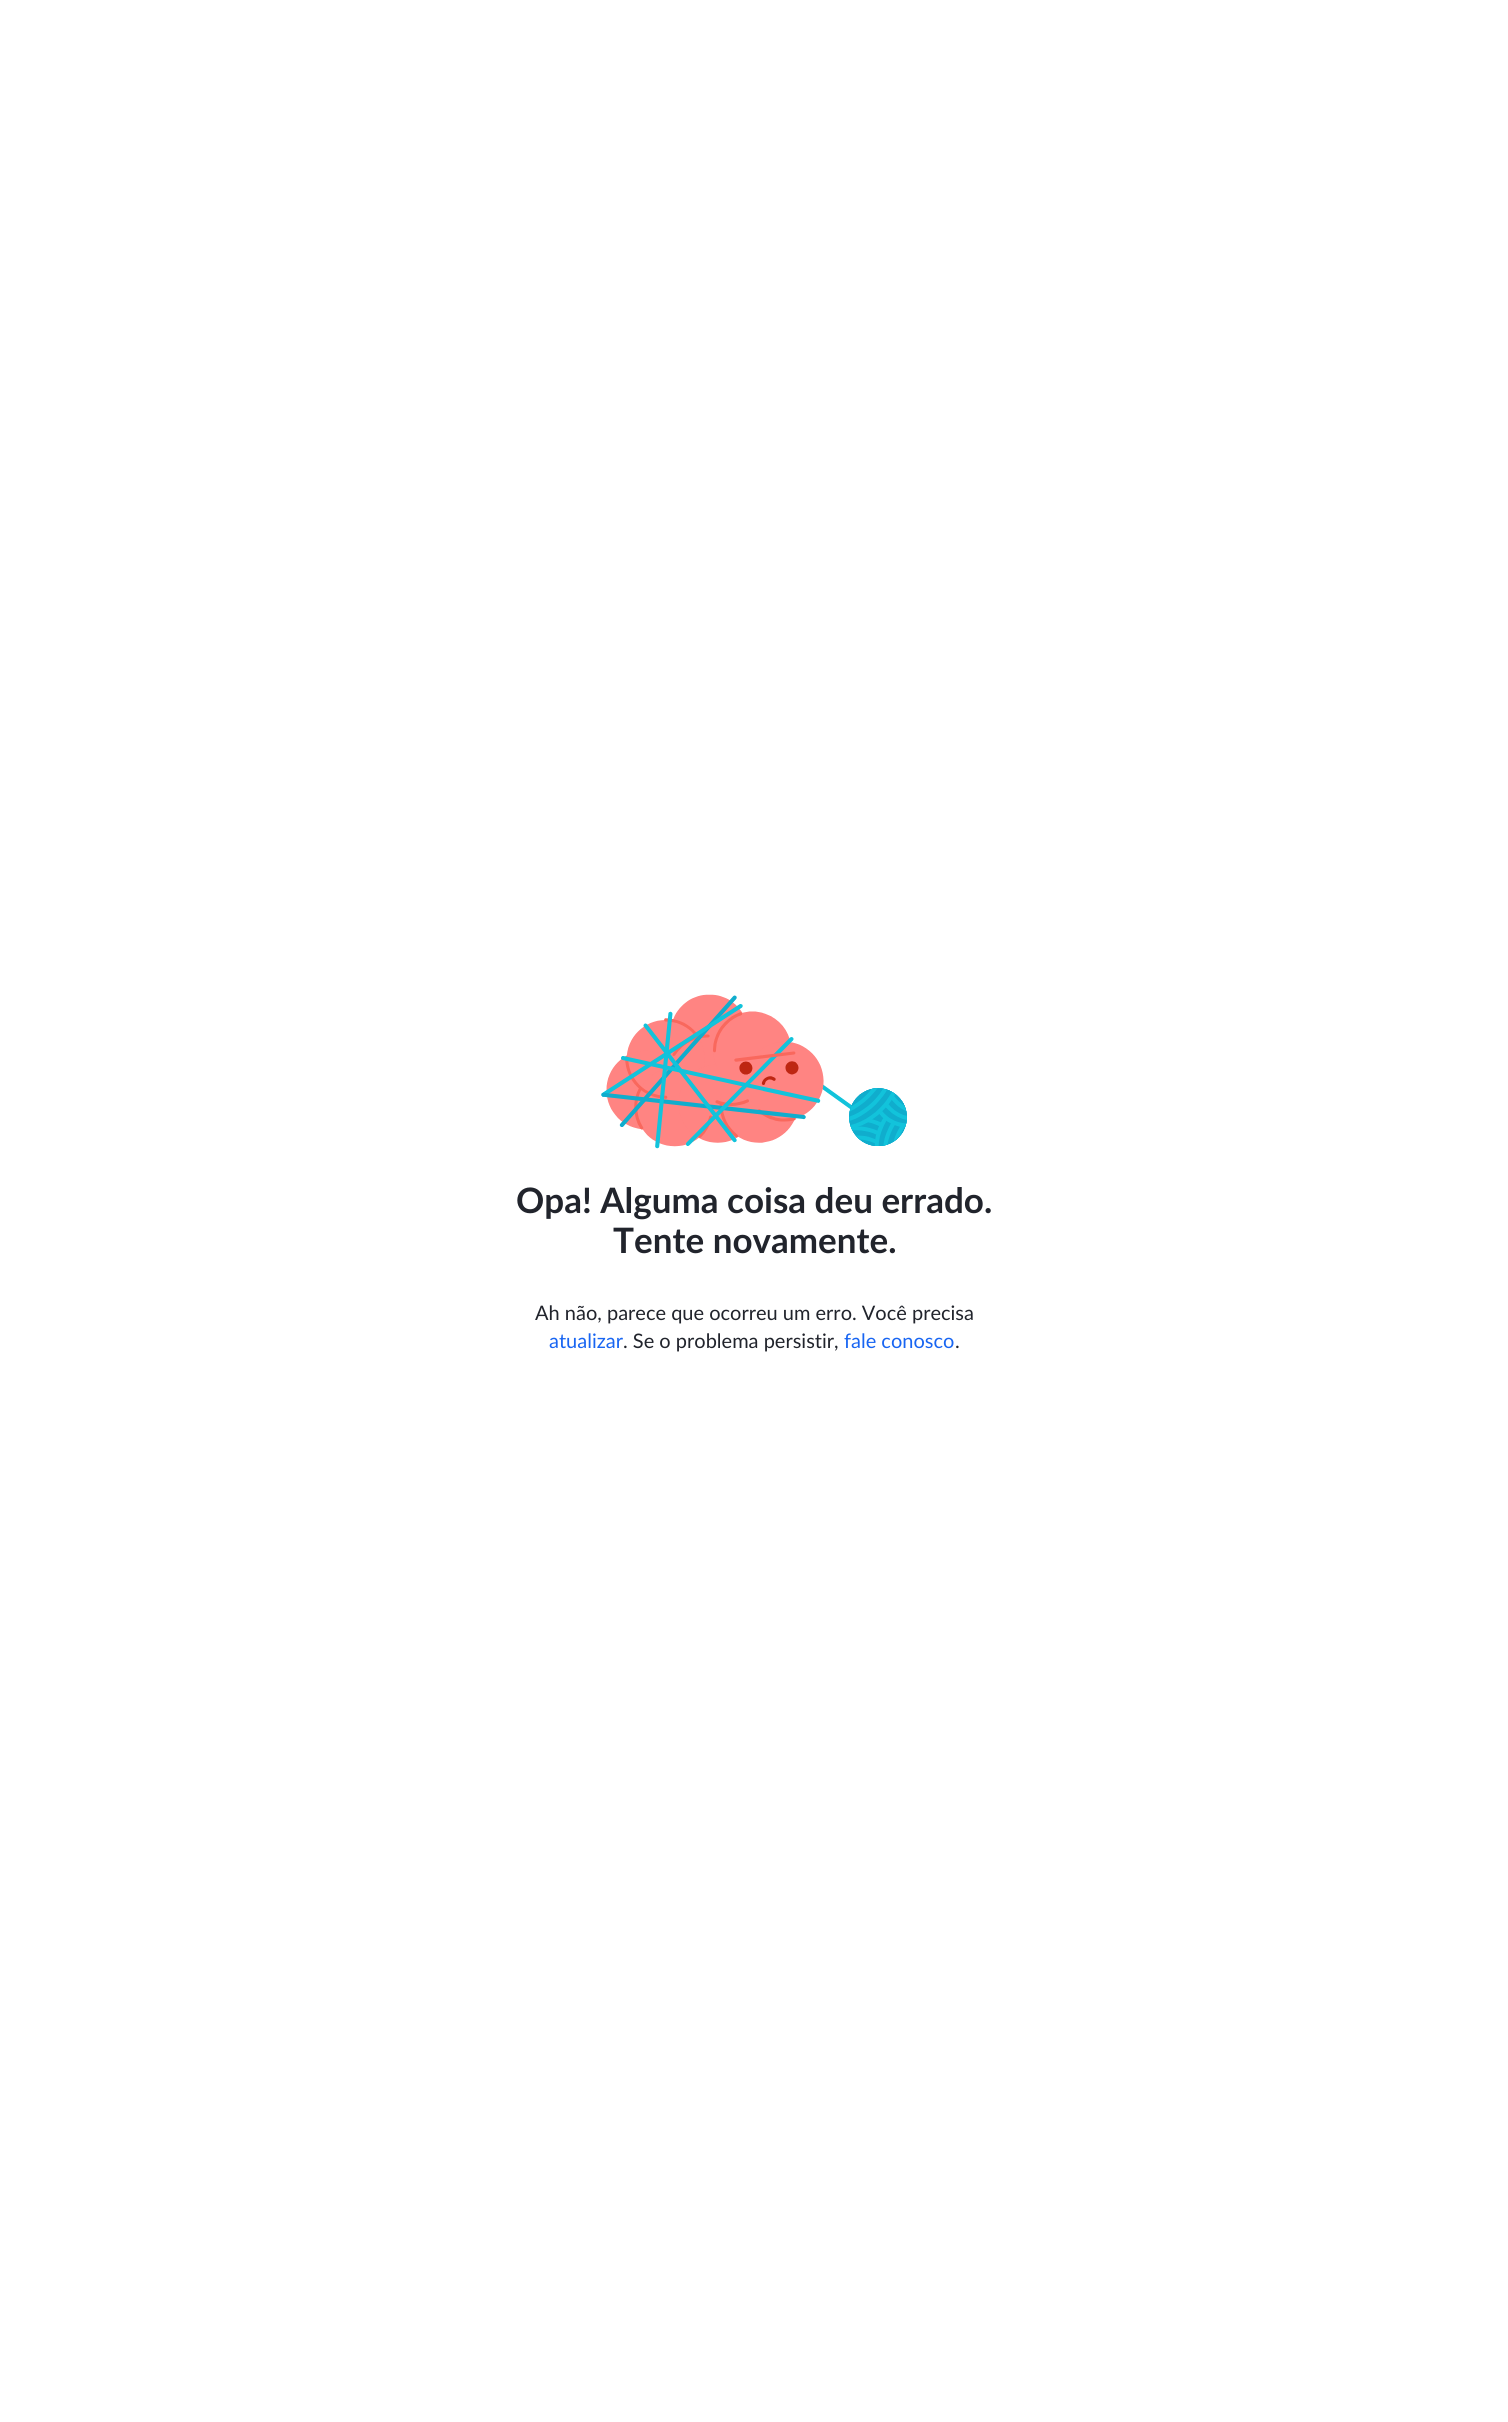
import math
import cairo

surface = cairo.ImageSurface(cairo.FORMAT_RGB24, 1508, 2422)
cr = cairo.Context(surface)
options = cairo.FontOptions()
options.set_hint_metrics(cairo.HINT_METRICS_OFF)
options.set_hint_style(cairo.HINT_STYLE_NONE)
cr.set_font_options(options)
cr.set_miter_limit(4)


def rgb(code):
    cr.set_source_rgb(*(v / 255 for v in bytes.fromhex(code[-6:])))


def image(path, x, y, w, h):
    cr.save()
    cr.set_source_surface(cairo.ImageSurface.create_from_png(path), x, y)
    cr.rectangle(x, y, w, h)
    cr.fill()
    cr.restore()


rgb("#ffffff")
cr.paint()
image("img/1.png", 601, 994, 306, 155)
cr.select_font_face("Lato", cairo.FONT_SLANT_NORMAL, cairo.FONT_WEIGHT_BOLD)
cr.set_font_size(35)
rgb("#21242c")
cr.move_to(516, 1213)
cr.show_text("Opa! Alguma coisa deu errado.")
cr.move_to(613, 1253)
cr.show_text("Tente novamente.")
cr.select_font_face("Lato")
cr.set_font_size(20)
cr.move_to(535, 1320)
cr.show_text("Ah não, parece que ocorreu um erro. Você precisa")
rgb("#1865f2")
cr.move_to(549, 1348)
cr.show_text("atualizar")
rgb("#21242c")
cr.move_to(623, 1348)
cr.show_text(". Se o problema persistir,")
rgb("#1865f2")
cr.move_to(844, 1348)
cr.show_text("fale conosco")
rgb("#21242c")
cr.move_to(955, 1348)
cr.show_text(".")
surface.write_to_png("page.png")
